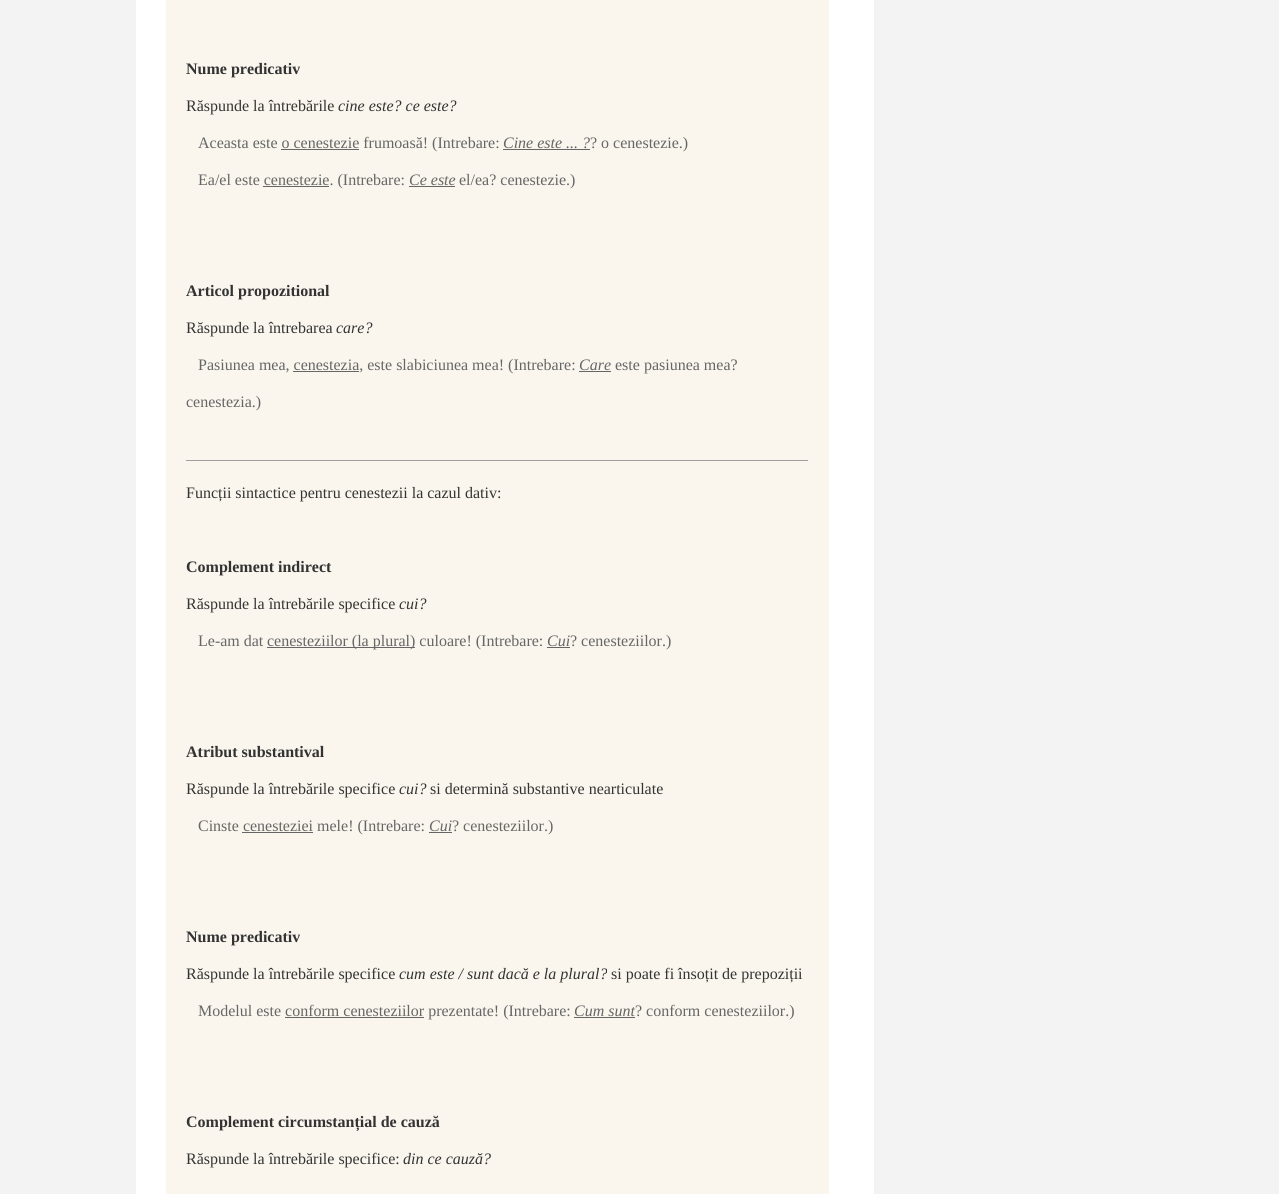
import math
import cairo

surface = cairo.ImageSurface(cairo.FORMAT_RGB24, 1279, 1194)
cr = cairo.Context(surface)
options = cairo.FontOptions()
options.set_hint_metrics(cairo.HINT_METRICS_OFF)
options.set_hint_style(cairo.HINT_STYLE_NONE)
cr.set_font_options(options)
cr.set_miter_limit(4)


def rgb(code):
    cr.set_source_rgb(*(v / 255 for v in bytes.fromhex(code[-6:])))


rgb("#f3f3f3")
cr.paint()
for x, y, w, h, color in [
    (136, 0, 738, 1194, "#ffffff"),
    (166, 0, 663, 1194, "#faf6ee"),
    (281, 149, 78, 1, "#666666"),
    (503, 149, 87, 1, "#666666"),
    (263, 186, 66, 1, "#666666"),
    (409, 186, 46, 1, "#666666"),
    (293, 371, 66, 1, "#666666"),
    (579, 371, 32, 1, "#666666"),
    (186, 460, 623, 1, "#9f9f9f"),
    (808, 460, 1, 1, "#eeeeee"),
    (267, 647, 148, 1, "#666666"),
    (547, 647, 23, 1, "#666666"),
    (242, 832, 71, 1, "#666666"),
    (429, 832, 23, 1, "#666666"),
    (285, 1017, 139, 1, "#666666"),
    (574, 1017, 61, 1, "#666666"),
]:
    rgb(color)
    cr.rectangle(x, y, w, h)
    cr.fill()
cr.select_font_face("Liberation Serif", cairo.FONT_SLANT_NORMAL, cairo.FONT_WEIGHT_BOLD)
cr.set_font_size(16)
rgb("#333333")
cr.move_to(186, 74)
cr.show_text("Nume predicativ")
cr.select_font_face("Liberation Serif")
cr.move_to(186, 111)
cr.show_text("Răspunde la întrebările")
cr.select_font_face("Liberation Serif", cairo.FONT_SLANT_ITALIC)
cr.move_to(338, 111)
cr.show_text("cine este? ce este?")
cr.select_font_face("Liberation Serif")
rgb("#666666")
cr.move_to(198, 148)
cr.show_text("Aceasta este o cenestezie frumoasă! (Intrebare:")
cr.select_font_face("Liberation Serif", cairo.FONT_SLANT_ITALIC)
cr.move_to(503, 148)
cr.show_text("Cine este ... ?")
cr.select_font_face("Liberation Serif")
cr.move_to(590, 148)
cr.show_text("? o cenestezie.)")
cr.move_to(198, 185)
cr.show_text("Ea/el este cenestezie. (Intrebare:")
cr.select_font_face("Liberation Serif", cairo.FONT_SLANT_ITALIC)
cr.move_to(409, 185)
cr.show_text("Ce este")
cr.select_font_face("Liberation Serif")
cr.move_to(459, 185)
cr.show_text("el/ea? cenestezie.)")
cr.select_font_face("Liberation Serif", cairo.FONT_SLANT_NORMAL, cairo.FONT_WEIGHT_BOLD)
rgb("#333333")
cr.move_to(186, 296)
cr.show_text("Articol propozitional")
cr.select_font_face("Liberation Serif")
cr.move_to(186, 333)
cr.show_text("Răspunde la întrebarea")
cr.select_font_face("Liberation Serif", cairo.FONT_SLANT_ITALIC)
cr.move_to(336, 333)
cr.show_text("care?")
cr.select_font_face("Liberation Serif")
rgb("#666666")
cr.move_to(198, 370)
cr.show_text("Pasiunea mea, cenestezia, este slabiciunea mea! (Intrebare:")
cr.select_font_face("Liberation Serif", cairo.FONT_SLANT_ITALIC)
cr.move_to(579, 370)
cr.show_text("Care")
cr.select_font_face("Liberation Serif")
cr.move_to(615, 370)
cr.show_text("este pasiunea mea?")
cr.move_to(186, 407)
cr.show_text("cenestezia.)")
rgb("#333333")
cr.move_to(186, 498)
cr.show_text("Funcții sintactice pentru cenestezii la cazul dativ:")
cr.select_font_face("Liberation Serif", cairo.FONT_SLANT_NORMAL, cairo.FONT_WEIGHT_BOLD)
cr.move_to(186, 572)
cr.show_text("Complement indirect")
cr.select_font_face("Liberation Serif")
cr.move_to(186, 609)
cr.show_text("Răspunde la întrebările specifice")
cr.select_font_face("Liberation Serif", cairo.FONT_SLANT_ITALIC)
cr.move_to(399, 609)
cr.show_text("cui?")
cr.select_font_face("Liberation Serif")
rgb("#666666")
cr.move_to(198, 646)
cr.show_text("Le-am dat")
cr.move_to(267, 646)
cr.show_text("cenesteziilor (la plural) culoare! (Intrebare:")
cr.select_font_face("Liberation Serif", cairo.FONT_SLANT_ITALIC)
cr.move_to(547, 646)
cr.show_text("Cui")
cr.select_font_face("Liberation Serif")
cr.move_to(570, 646)
cr.show_text("? cenesteziilor.)")
cr.select_font_face("Liberation Serif", cairo.FONT_SLANT_NORMAL, cairo.FONT_WEIGHT_BOLD)
rgb("#333333")
cr.move_to(186, 757)
cr.show_text("Atribut substantival")
cr.select_font_face("Liberation Serif")
cr.move_to(186, 794)
cr.show_text("Răspunde la întrebările specifice")
cr.select_font_face("Liberation Serif", cairo.FONT_SLANT_ITALIC)
cr.move_to(399, 794)
cr.show_text("cui?")
cr.select_font_face("Liberation Serif")
cr.move_to(430, 794)
cr.show_text("si determină substantive nearticulate")
rgb("#666666")
cr.move_to(198, 831)
cr.show_text("Cinste cenesteziei mele! (Intrebare:")
cr.select_font_face("Liberation Serif", cairo.FONT_SLANT_ITALIC)
cr.move_to(429, 831)
cr.show_text("Cui")
cr.select_font_face("Liberation Serif")
cr.move_to(452, 831)
cr.show_text("? cenesteziilor.)")
cr.select_font_face("Liberation Serif", cairo.FONT_SLANT_NORMAL, cairo.FONT_WEIGHT_BOLD)
rgb("#333333")
cr.move_to(186, 942)
cr.show_text("Nume predicativ")
cr.select_font_face("Liberation Serif")
cr.move_to(186, 979)
cr.show_text("Răspunde la întrebările specifice")
cr.select_font_face("Liberation Serif", cairo.FONT_SLANT_ITALIC)
cr.move_to(399, 979)
cr.show_text("cum este / sunt dacă e la plural?")
cr.select_font_face("Liberation Serif")
cr.move_to(611, 979)
cr.show_text("si poate fi însoțit de prepoziții")
rgb("#666666")
cr.move_to(198, 1016)
cr.show_text("Modelul este conform cenesteziilor prezentate! (Intrebare:")
cr.select_font_face("Liberation Serif", cairo.FONT_SLANT_ITALIC)
cr.move_to(574, 1016)
cr.show_text("Cum sunt")
cr.select_font_face("Liberation Serif")
cr.move_to(635, 1016)
cr.show_text("? conform cenesteziilor.)")
cr.select_font_face("Liberation Serif", cairo.FONT_SLANT_NORMAL, cairo.FONT_WEIGHT_BOLD)
rgb("#333333")
cr.move_to(186, 1127)
cr.show_text("Complement circumstanțial de cauză")
cr.select_font_face("Liberation Serif")
cr.move_to(186, 1164)
cr.show_text("Răspunde la întrebările specifice:")
cr.select_font_face("Liberation Serif", cairo.FONT_SLANT_ITALIC)
cr.move_to(403, 1164)
cr.show_text("din ce cauză?")
surface.write_to_png("page.png")
